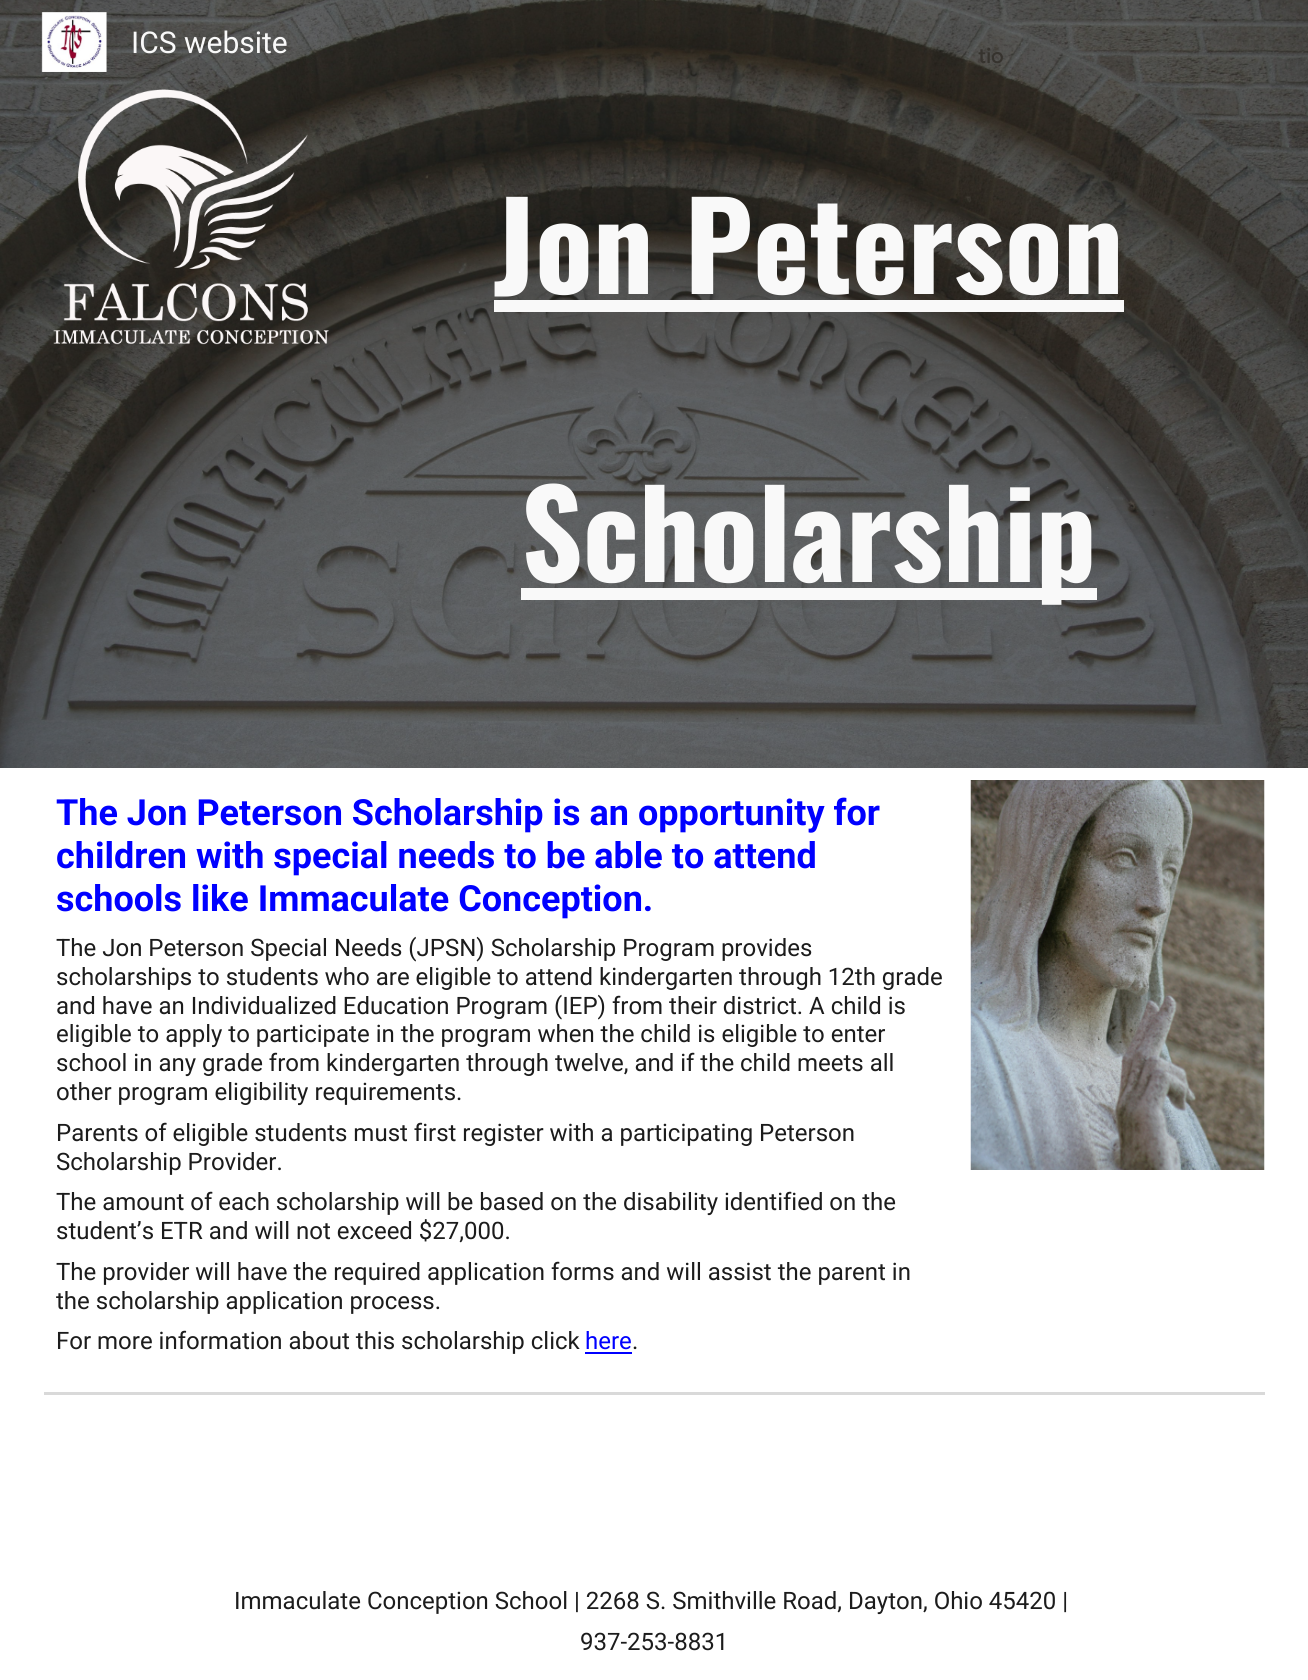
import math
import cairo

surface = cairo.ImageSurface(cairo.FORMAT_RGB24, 1308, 1680)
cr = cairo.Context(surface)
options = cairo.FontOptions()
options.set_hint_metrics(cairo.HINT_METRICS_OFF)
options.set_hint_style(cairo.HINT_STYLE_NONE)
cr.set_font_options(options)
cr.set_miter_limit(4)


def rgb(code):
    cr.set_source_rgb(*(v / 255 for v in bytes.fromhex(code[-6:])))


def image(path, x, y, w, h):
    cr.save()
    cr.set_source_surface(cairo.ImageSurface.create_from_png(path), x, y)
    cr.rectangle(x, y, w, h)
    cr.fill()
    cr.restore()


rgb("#ffffff")
cr.paint()
image("img/2.png", 0, 0, 1308, 768)
image("img/1.png", 41, 12, 66, 60)
image("img/3.png", 53, 89, 276, 256)
for x, y, w, h, color in [
    (494, 300, 630, 12, "#f9f9f9"),
    (521, 588, 576, 12, "#f9f9f9"),
    (585, 1352, 47, 2, "#0000ff"),
]:
    rgb(color)
    cr.rectangle(x, y, w, h)
    cr.fill()
image("img/4.png", 970, 780, 295, 390)
rgb("#d9d9d9")
cr.rectangle(44, 1392, 1221, 3)
cr.fill()
cr.select_font_face("Roboto")
cr.set_font_size(30)
rgb("#f9f9f9")
cr.move_to(131, 53)
cr.show_text("ICS website")
cr.select_font_face("Oswald", cairo.FONT_SLANT_NORMAL, cairo.FONT_WEIGHT_BOLD)
cr.set_font_size(120)
cr.move_to(493, 294)
cr.show_text("Jon Peterson")
cr.move_to(521, 582)
cr.show_text("Scholarship")
cr.select_font_face("Roboto", cairo.FONT_SLANT_NORMAL, cairo.FONT_WEIGHT_BOLD)
cr.set_font_size(36)
rgb("#0000ff")
for x, y, s in [
    (56, 825, "The Jon Peterson Scholarship is an opportunity for"),
    (56, 868, "children with special needs to be able to attend"),
    (56, 911, "schools like Immaculate Conception."),
]:
    cr.move_to(x, y)
    cr.show_text(s)
cr.select_font_face("Roboto")
cr.set_font_size(24)
rgb("#1c1c1c")
for x, y, s in [
    (56, 956, "The Jon Peterson Special Needs (JPSN) Scholarship Program provides"),
    (56, 985, "scholarships to students who are eligible to attend kindergarten through 12th grade"),
    (56, 1014, "and have an Individualized Education Program (IEP) from their district. A child is"),
    (56, 1042, "eligible to apply to participate in the program when the child is eligible to enter"),
    (56, 1071, "school in any grade from kindergarten through twelve, and if the child meets all"),
    (56, 1100, "other program eligibility requirements."),
    (56, 1141, "Parents of eligible students must first register with a participating Peterson"),
    (56, 1170, "Scholarship Provider."),
    (56, 1210, "The amount of each scholarship will be based on the disability identified on the"),
    (56, 1239, "student’s ETR and will not exceed $27,000."),
    (56, 1280, "The provider will have the required application forms and will assist the parent in"),
    (56, 1309, "the scholarship application process."),
    (56, 1349, "For more information about this scholarship click"),
]:
    cr.move_to(x, y)
    cr.show_text(s)
rgb("#0000ff")
cr.move_to(585, 1349)
cr.show_text("here")
rgb("#1c1c1c")
for x, y, s in [
    (632, 1349, "."),
    (234, 1609, "Immaculate Conception School | 2268 S. Smithville Road, Dayton, Ohio 45420 |"),
    (580, 1650, "937-253-8831"),
]:
    cr.move_to(x, y)
    cr.show_text(s)
cr.select_font_face("Google Sans Medium")
cr.set_font_size(21)
rgb("#36332e")
cr.move_to(978, 63)
cr.show_text("tio")
surface.write_to_png("page.png")
